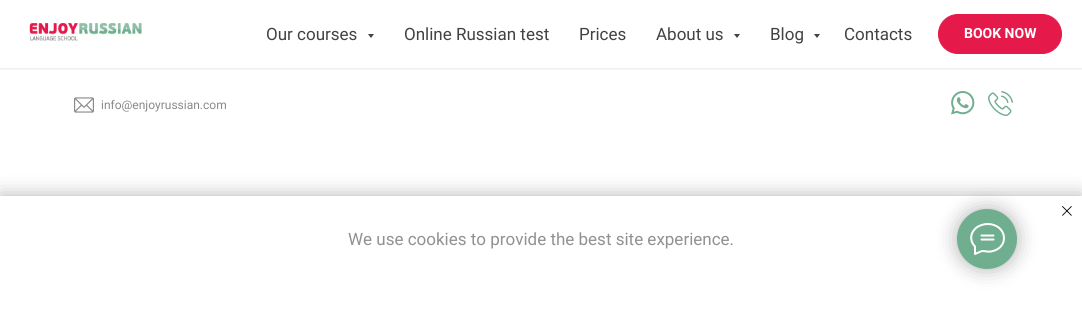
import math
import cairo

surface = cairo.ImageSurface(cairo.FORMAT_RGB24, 1082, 319)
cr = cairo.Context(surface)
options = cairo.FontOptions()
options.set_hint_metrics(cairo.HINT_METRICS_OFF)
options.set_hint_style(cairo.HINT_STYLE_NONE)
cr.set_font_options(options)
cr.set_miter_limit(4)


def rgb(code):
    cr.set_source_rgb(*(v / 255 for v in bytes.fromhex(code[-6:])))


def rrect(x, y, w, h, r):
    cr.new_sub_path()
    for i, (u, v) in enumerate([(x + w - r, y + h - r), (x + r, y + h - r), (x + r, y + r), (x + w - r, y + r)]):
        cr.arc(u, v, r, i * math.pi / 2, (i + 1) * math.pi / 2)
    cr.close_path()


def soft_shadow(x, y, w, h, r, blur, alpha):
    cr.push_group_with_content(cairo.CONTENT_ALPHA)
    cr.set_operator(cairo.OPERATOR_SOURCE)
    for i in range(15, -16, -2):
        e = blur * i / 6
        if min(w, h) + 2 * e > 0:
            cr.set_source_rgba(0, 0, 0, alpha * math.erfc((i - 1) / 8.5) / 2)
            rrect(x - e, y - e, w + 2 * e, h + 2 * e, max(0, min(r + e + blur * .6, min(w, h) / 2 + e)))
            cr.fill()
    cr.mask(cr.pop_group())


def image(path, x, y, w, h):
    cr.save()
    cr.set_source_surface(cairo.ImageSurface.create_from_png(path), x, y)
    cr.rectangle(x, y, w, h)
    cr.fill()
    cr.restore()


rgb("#ffffff")
cr.paint()
cr.save()
cr.rectangle(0, 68, 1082, 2)
cr.clip()
rgb("#000000")
soft_shadow(0, 1, 1082, 68, 0, 1.5, 0.1)
cr.restore()
image("img/1.png", 29, 23, 113, 18)
rgb("#424242")
cr.new_path()
cr.move_to(368, 34)
cr.line_to(374, 34)
cr.line_to(371, 38)
cr.close_path()
cr.fill()
cr.new_path()
cr.move_to(734, 34)
cr.line_to(740, 34)
cr.line_to(737, 38)
cr.close_path()
cr.fill()
cr.new_path()
cr.move_to(814, 34)
cr.line_to(820, 34)
cr.line_to(817, 38)
cr.close_path()
cr.fill()
rgb("#e51a4b")
rrect(938.5, 14.5, 123, 39, 19.5)
cr.fill_preserve()
cr.set_line_width(1)
cr.stroke()
image("img/2.png", 74, 97, 20, 16)
image("img/3.png", 951, 91, 24, 24)
image("img/4.png", 988, 91, 25, 25)
rgb("#000000")
soft_shadow(0, 196, 1082, 123, 0, 10, 0.3)
rgb("#ffffff")
cr.rectangle(0, 196, 1082, 123)
cr.fill()
image("img/5.png", 1062, 206, 10, 10)
rgb("#000000")
soft_shadow(957, 209, 60, 60, 30, 10, 0.3)
rgb("#6fae8e")
cr.arc(987, 239, 30, 0, 2 * math.pi)
cr.fill()
cr.new_path()
cr.move_to(981.5, 235.5)
cr.line_to(993.5, 235.5)
cr.move_to(981.5, 239.5)
cr.line_to(993.5, 239.5)
cr.move_to(975, 246.5)
cr.curve_to(969.5, 241, 970, 233, 976, 228)
cr.curve_to(979, 225.5, 983.5, 224, 987.5, 224)
cr.curve_to(1007, 224, 1010.5, 248, 991, 251.5)
cr.curve_to(987, 252, 985.5, 251, 982, 251)
cr.line_to(975, 254)
cr.line_to(975, 247)
cr.close_path()
rgb("#ffffff")
cr.set_line_width(2)
cr.set_line_cap(cairo.LINE_CAP_ROUND)
cr.set_line_join(cairo.LINE_JOIN_ROUND)
cr.stroke()
cr.select_font_face("Roboto")
cr.set_font_size(17)
rgb("#424242")
for x, y, s in [
    (266, 40, "Our courses"),
    (404, 40, "Online Russian test"),
    (579, 40, "Prices"),
    (656, 40, "About us"),
    (770, 40, "Blog"),
    (844, 40, "Contacts"),
]:
    cr.move_to(x, y)
    cr.show_text(s)
cr.select_font_face("Roboto", cairo.FONT_SLANT_NORMAL, cairo.FONT_WEIGHT_BOLD)
cr.set_font_size(14)
rgb("#ffffff")
cr.move_to(964, 38)
cr.show_text("BOOK NOW")
cr.select_font_face("Roboto")
cr.set_font_size(12)
rgb("#898989")
cr.move_to(101, 109)
cr.show_text("info@enjoyrussian.com")
cr.set_font_size(17)
rgb("#909194")
cr.move_to(348, 245)
cr.show_text("We use cookies to provide the best site experience.")
surface.write_to_png("page.png")
